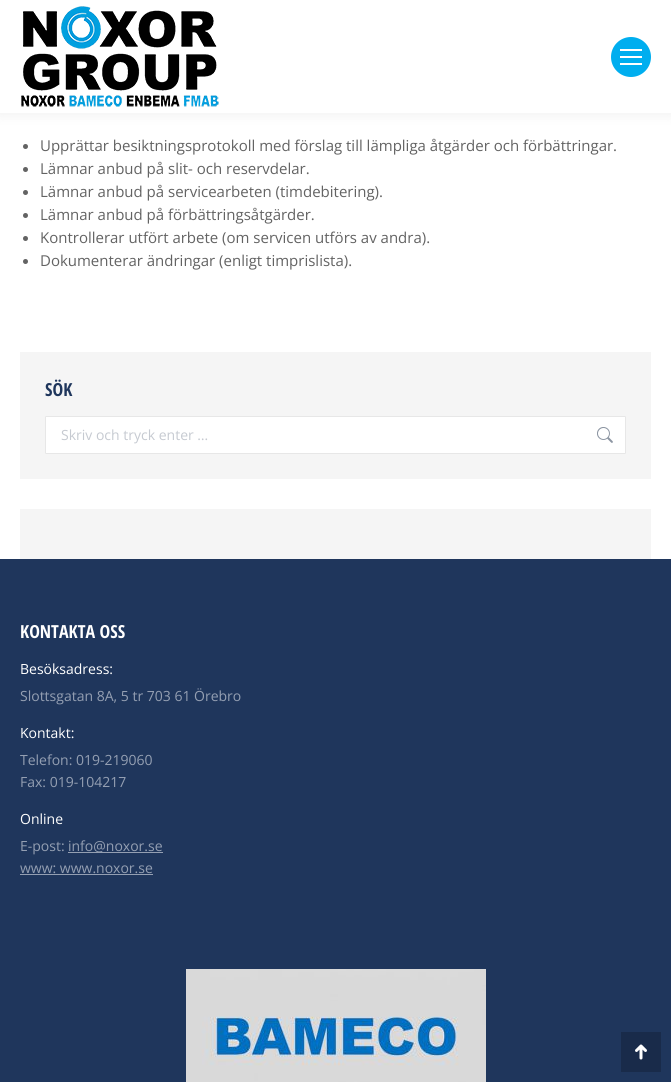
import math
import cairo

surface = cairo.ImageSurface(cairo.FORMAT_RGB24, 671, 1082)
cr = cairo.Context(surface)
options = cairo.FontOptions()
options.set_hint_metrics(cairo.HINT_METRICS_OFF)
options.set_hint_style(cairo.HINT_STYLE_NONE)
cr.set_font_options(options)
cr.set_miter_limit(4)


def rgb(code):
    cr.set_source_rgb(*(v / 255 for v in bytes.fromhex(code[-6:])))


def rrect(x, y, w, h, r):
    cr.new_sub_path()
    for i, (u, v) in enumerate([(x + w - r, y + h - r), (x + r, y + h - r), (x + r, y + r), (x + w - r, y + r)]):
        cr.arc(u, v, r, i * math.pi / 2, (i + 1) * math.pi / 2)
    cr.close_path()


def soft_shadow(x, y, w, h, r, blur, alpha):
    cr.push_group_with_content(cairo.CONTENT_ALPHA)
    cr.set_operator(cairo.OPERATOR_SOURCE)
    for i in range(15, -16, -2):
        e = blur * i / 6
        if min(w, h) + 2 * e > 0:
            cr.set_source_rgba(0, 0, 0, alpha * math.erfc((i - 1) / 8.5) / 2)
            rrect(x - e, y - e, w + 2 * e, h + 2 * e, max(0, min(r + e + blur * .6, min(w, h) / 2 + e)))
            cr.fill()
    cr.mask(cr.pop_group())


def image(path, x, y, w, h):
    cr.save()
    cr.set_source_surface(cairo.ImageSurface.create_from_png(path), x, y)
    cr.rectangle(x, y, w, h)
    cr.fill()
    cr.restore()


rgb("#ffffff")
cr.paint()
rgb("#000000")
soft_shadow(-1, -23, 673, 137, 0, 7.5, 0.07)
rgb("#ffffff")
cr.rectangle(0, 0, 671, 113)
cr.fill()
image("img/1.png", 21, 6, 198, 101)
rgb("#00aeef")
cr.arc(631, 57, 20, 0, 2 * math.pi)
cr.fill()
for x, y, w, h, color in [
    (620, 49, 22, 2, "#ffffff"),
    (620, 56, 22, 2, "#ffffff"),
    (620, 63, 22, 2, "#ffffff"),
]:
    rgb(color)
    cr.rectangle(x, y, w, h)
    cr.fill()
rgb("#636363")
cr.arc(25.5, 146.5, 2.5, 0, 2 * math.pi)
cr.fill()
cr.arc(25.5, 169.5, 2.5, 0, 2 * math.pi)
cr.fill()
cr.arc(25.5, 192.5, 2.5, 0, 2 * math.pi)
cr.fill()
cr.arc(25.5, 215.5, 2.5, 0, 2 * math.pi)
cr.fill()
cr.arc(25.5, 238.5, 2.5, 0, 2 * math.pi)
cr.fill()
cr.arc(25.5, 261.5, 2.5, 0, 2 * math.pi)
cr.fill()
rgb("#f5f5f5")
cr.rectangle(20, 352, 631, 127)
cr.fill()
rgb("#ffffff")
rrect(45.5, 416.5, 580, 37, 0.5)
cr.fill_preserve()
rgb("#e7e7e7")
cr.set_line_width(1)
cr.stroke()
image("img/2.png", 597, 427, 16, 16)
for x, y, w, h, color in [
    (20, 509, 631, 50, "#f5f5f5"),
    (0, 559, 671, 523, "#1f365c"),
    (68, 852, 95, 1, "#949fb2"),
    (20, 874, 133, 1, "#949fb2"),
]:
    rgb(color)
    cr.rectangle(x, y, w, h)
    cr.fill()
image("img/3.png", 186, 969, 300, 113)
rgb("#192b4a")
cr.rectangle(621, 1032, 40, 40)
cr.fill()
image("img/4.png", 635, 1044, 12, 16)
cr.select_font_face("Open Sans")
cr.set_font_size(15)
rgb("#636363")
for x, y, s in [
    (40, 151, "Upprättar besiktningsprotokoll med förslag till lämpliga åtgärder och förbättringar."),
    (40, 174, "Lämnar anbud på slit- och reservdelar."),
    (40, 197, "Lämnar anbud på servicearbeten (timdebitering)."),
    (40, 220, "Lämnar anbud på förbättringsåtgärder."),
    (40, 243, "Kontrollerar utfört arbete (om servicen utförs av andra)."),
    (40, 266, "Dokumenterar ändringar (enligt timprislista)."),
]:
    cr.move_to(x, y)
    cr.show_text(s)
cr.select_font_face("Open Sans Condensed", cairo.FONT_SLANT_NORMAL, cairo.FONT_WEIGHT_BOLD)
cr.set_font_size(18)
rgb("#1f365c")
cr.move_to(45, 396)
cr.show_text("SÖK")
cr.select_font_face("Open Sans")
cr.set_font_size(14)
rgb("#c6cad1")
cr.move_to(61, 440)
cr.show_text("Skriv och tryck enter …")
cr.select_font_face("Open Sans Condensed", cairo.FONT_SLANT_NORMAL, cairo.FONT_WEIGHT_BOLD)
cr.set_font_size(18)
rgb("#ffffff")
cr.move_to(20, 638)
cr.show_text("KONTAKTA OSS")
cr.select_font_face("Open Sans")
cr.set_font_size(14)
cr.move_to(20, 674)
cr.show_text("Besöksadress:")
rgb("#949fb2")
cr.move_to(20, 701)
cr.show_text("Slottsgatan 8A, 5 tr 703 61 Örebro")
rgb("#ffffff")
cr.move_to(20, 738)
cr.show_text("Kontakt:")
rgb("#949fb2")
cr.move_to(20, 765)
cr.show_text("Telefon: 019-219060")
cr.move_to(20, 787)
cr.show_text("Fax: 019-104217")
rgb("#ffffff")
cr.move_to(20, 824)
cr.show_text("Online")
rgb("#949fb2")
for x, y, s in [
    (20, 851, "E-post:"),
    (68, 851, "info@noxor.se"),
    (20, 873, "www: www.noxor.se"),
]:
    cr.move_to(x, y)
    cr.show_text(s)
surface.write_to_png("page.png")
